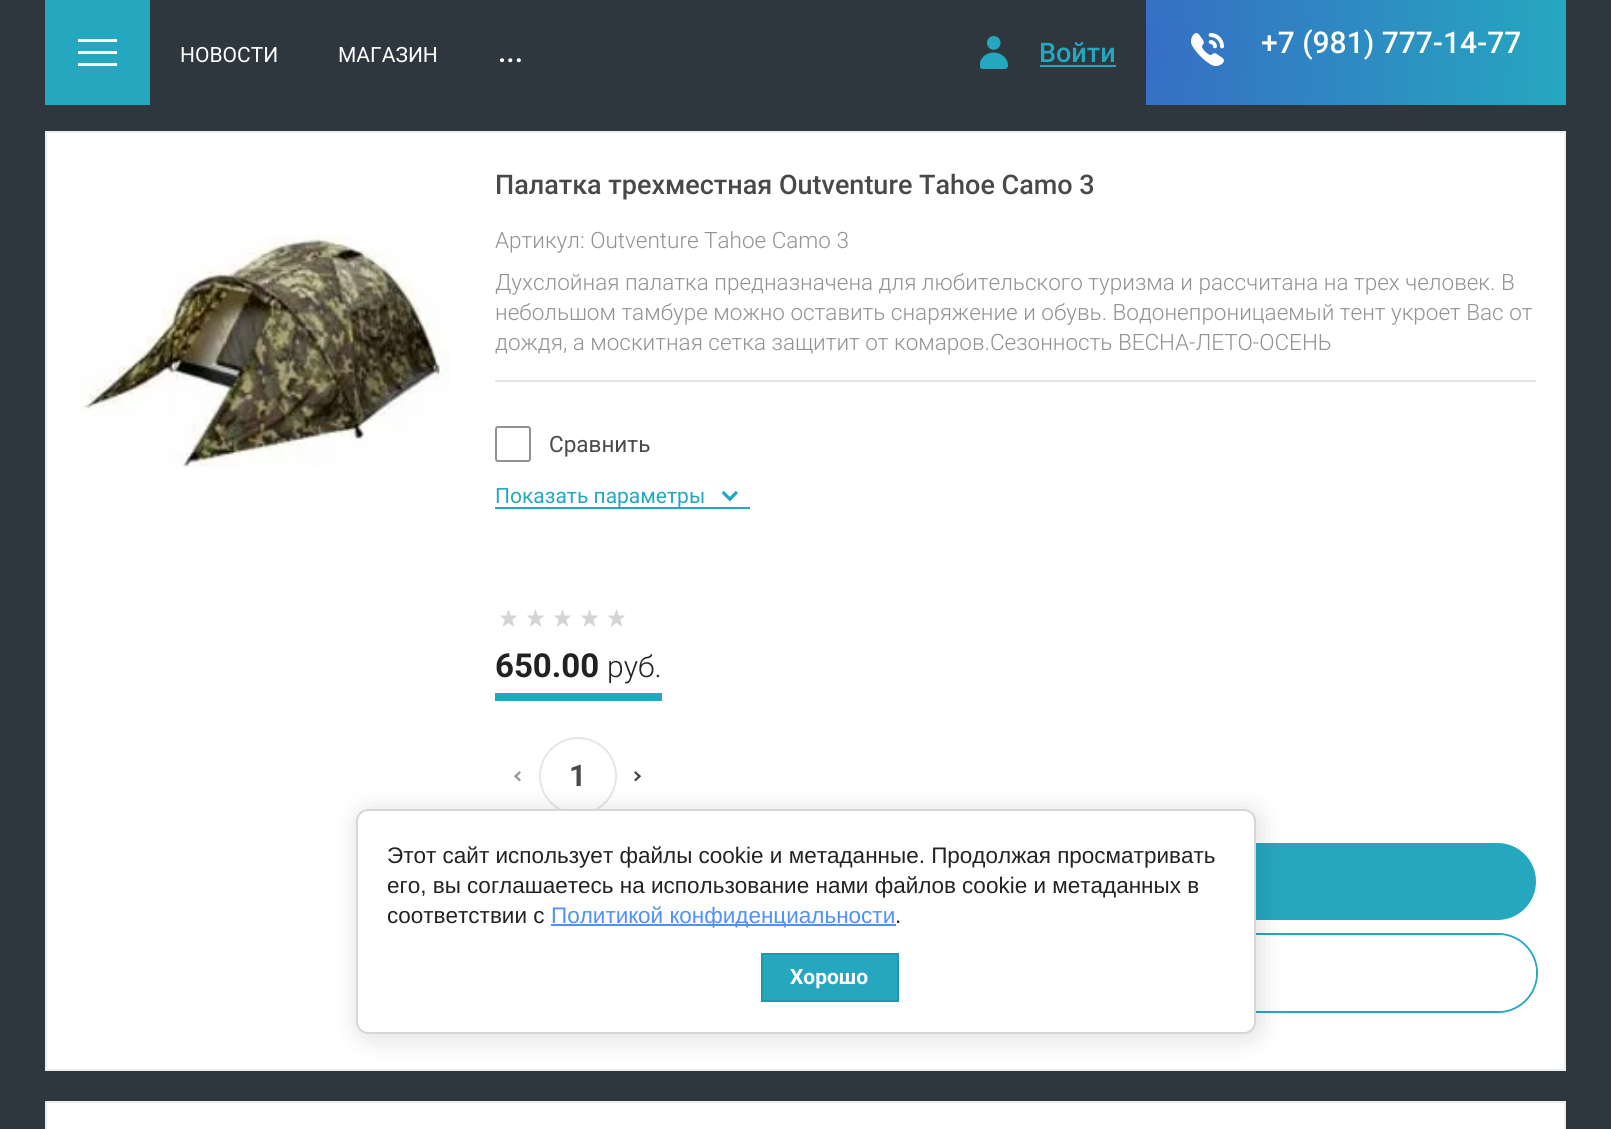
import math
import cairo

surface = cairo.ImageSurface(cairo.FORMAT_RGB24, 1611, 1129)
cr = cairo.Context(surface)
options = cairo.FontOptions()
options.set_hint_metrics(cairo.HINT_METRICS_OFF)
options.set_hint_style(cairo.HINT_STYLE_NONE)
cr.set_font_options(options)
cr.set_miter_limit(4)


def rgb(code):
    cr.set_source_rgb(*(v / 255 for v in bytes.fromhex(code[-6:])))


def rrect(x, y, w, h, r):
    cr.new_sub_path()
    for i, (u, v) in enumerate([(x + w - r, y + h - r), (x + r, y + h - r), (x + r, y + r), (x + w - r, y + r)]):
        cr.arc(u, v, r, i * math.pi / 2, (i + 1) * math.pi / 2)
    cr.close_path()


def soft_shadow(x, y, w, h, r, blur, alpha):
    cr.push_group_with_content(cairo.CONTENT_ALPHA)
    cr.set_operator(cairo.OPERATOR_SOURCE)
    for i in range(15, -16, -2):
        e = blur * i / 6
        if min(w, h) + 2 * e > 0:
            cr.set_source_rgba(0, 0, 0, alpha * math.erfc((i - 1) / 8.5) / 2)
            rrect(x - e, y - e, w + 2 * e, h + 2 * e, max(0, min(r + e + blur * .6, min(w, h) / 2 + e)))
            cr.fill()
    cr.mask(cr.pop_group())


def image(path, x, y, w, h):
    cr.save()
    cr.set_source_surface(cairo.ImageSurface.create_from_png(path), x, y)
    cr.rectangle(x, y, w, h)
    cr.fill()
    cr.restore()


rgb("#2d373d")
cr.paint()
rgb("#26a7c0")
cr.rectangle(45, 0, 105, 105)
cr.fill()
rgb("#ffffff")
cr.new_path()
cr.move_to(78, 39)
cr.line_to(117, 39)
cr.line_to(117, 42)
cr.line_to(78, 42)
cr.close_path()
cr.move_to(78, 51)
cr.line_to(117, 51)
cr.line_to(117, 54)
cr.line_to(78, 54)
cr.close_path()
cr.move_to(78, 63)
cr.line_to(117, 63)
cr.line_to(117, 66)
cr.line_to(78, 66)
cr.close_path()
cr.fill()
image("img/1.png", 980, 36, 28, 33)
rgb("#26a7c0")
cr.rectangle(1040, 65, 76, 2)
cr.fill()
gradient = cairo.RadialGradient(0, 0, 0, 0, 0, 1)
gradient.set_matrix(cairo.Matrix(1 / 420, 0, 0, 1 / 730, -1 * 1146 / 420, -1 * 53 / 730))
gradient.add_color_stop_rgba(0, 0.212, 0.431, 0.769, 1)
gradient.add_color_stop_rgba(1, 0.149, 0.655, 0.753, 1)
cr.set_source(gradient)
cr.rectangle(1146, 0, 420, 105)
cr.fill()
image("img/2.png", 1191, 33, 33, 33)
rgb("#ffffff")
cr.rectangle(46, 132, 1519, 938)
cr.fill_preserve()
rgb("#ededed")
cr.stroke()
image("img/3.png", 75, 235, 375, 234)
rgb("#e6e6e6")
cr.rectangle(495, 380, 1041, 2)
cr.fill()
rrect(496, 427, 34, 34, 2)
rgb("#929292")
cr.stroke()
rgb("#26a7c0")
cr.rectangle(495, 507, 255, 2)
cr.fill()
image("img/4.png", 722, 491, 16, 11)
image("img/5.png", 499, 609, 127, 18)
cr.rectangle(495, 693, 167, 8)
cr.fill()
image("img/6.png", 514, 771, 7, 11)
cr.arc(578, 776, 38, 0, 2 * math.pi)
rgb("#e6e6e6")
cr.stroke()
image("img/7.png", 634, 771, 7, 11)
rgb("#26a7c0")
rrect(495, 843, 1041, 77, 38.5)
cr.fill()
rrect(495, 934, 1042, 78, 39)
cr.stroke()
rgb("#ffffff")
rrect(495, 935, 1041, 76, 38)
cr.fill()
cr.rectangle(46, 1102, 1519, 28)
cr.fill_preserve()
rgb("#ededed")
cr.stroke()
rgb("#000000")
soft_shadow(359, 812, 900, 225, 12, 13.5, 0.14)
rgb("#ffffff")
rrect(357, 810, 898, 223, 11)
cr.fill_preserve()
rgb("#d6d6d6")
cr.stroke()
rgb("#4d90fe")
cr.rectangle(551, 924, 345, 2)
cr.fill()
rgb("#26a7c0")
cr.rectangle(762, 954, 136, 47)
cr.fill_preserve()
rgb("#2296ad")
cr.stroke()
cr.select_font_face("Roboto")
cr.set_font_size(21)
rgb("#ffffff")
cr.move_to(180, 62)
cr.show_text("НОВОСТИ")
cr.move_to(338, 62)
cr.show_text("МАГАЗИН")
cr.select_font_face("Roboto Medium")
cr.set_font_size(30)
cr.move_to(498, 62)
cr.show_text("...")
cr.set_font_size(27)
rgb("#26a7c0")
cr.move_to(1039, 62)
cr.show_text("Войти")
cr.set_font_size(30)
rgb("#ffffff")
cr.move_to(1261, 53)
cr.show_text("+7 (981) 777-14-77")
cr.set_font_size(27)
rgb("#494949")
cr.move_to(495, 194)
cr.show_text("Палатка трехместная Outventure Tahoe Camo 3")
cr.select_font_face("Roboto Light")
cr.set_font_size(22.5)
rgb("#929292")
for x, y, s in [
    (495, 248, "Артикул: Outventure Tahoe Camo 3"),
    (495, 290, "Духслойная палатка предназначена для любительского туризма и рассчитана на трех человек. В"),
    (495, 320, "небольшом тамбуре можно оставить снаряжение и обувь. Водонепроницаемый тент укроет Вас от"),
    (495, 350, "дождя, а москитная сетка защитит от комаров.Сезонность ВЕСНА-ЛЕТО-ОСЕНЬ"),
]:
    cr.move_to(x, y)
    cr.show_text(s)
cr.select_font_face("Roboto")
rgb("#494949")
cr.move_to(549, 452)
cr.show_text("Сравнить")
cr.set_font_size(21)
rgb("#26a7c0")
cr.move_to(495, 503)
cr.show_text("Показать параметры")
cr.select_font_face("Roboto", cairo.FONT_SLANT_NORMAL, cairo.FONT_WEIGHT_BOLD)
cr.set_font_size(33)
rgb("#222222")
cr.move_to(495, 677)
cr.show_text("650.00")
cr.select_font_face("Roboto Light")
cr.set_font_size(30)
cr.move_to(607, 677)
cr.show_text("руб.")
cr.select_font_face("Roboto", cairo.FONT_SLANT_NORMAL, cairo.FONT_WEIGHT_BOLD)
rgb("#494949")
cr.move_to(569, 786)
cr.show_text("1")
cr.select_font_face("Liberation Sans")
cr.set_font_size(22.5)
rgb("#222222")
for x, y, s in [
    (387, 863, "Этот сайт использует файлы cookie и метаданные. Продолжая просматривать"),
    (387, 893, "его, вы соглашаетесь на использование нами файлов cookie и метаданных в"),
    (387, 923, "соответствии с"),
]:
    cr.move_to(x, y)
    cr.show_text(s)
rgb("#4d90fe")
cr.move_to(551, 923)
cr.show_text("Политикой конфиденциальности")
rgb("#222222")
cr.move_to(895, 923)
cr.show_text(".")
cr.select_font_face("Roboto", cairo.FONT_SLANT_NORMAL, cairo.FONT_WEIGHT_BOLD)
cr.set_font_size(21)
rgb("#ffffff")
cr.move_to(790, 984)
cr.show_text("Хорошо")
surface.write_to_png("page.png")
